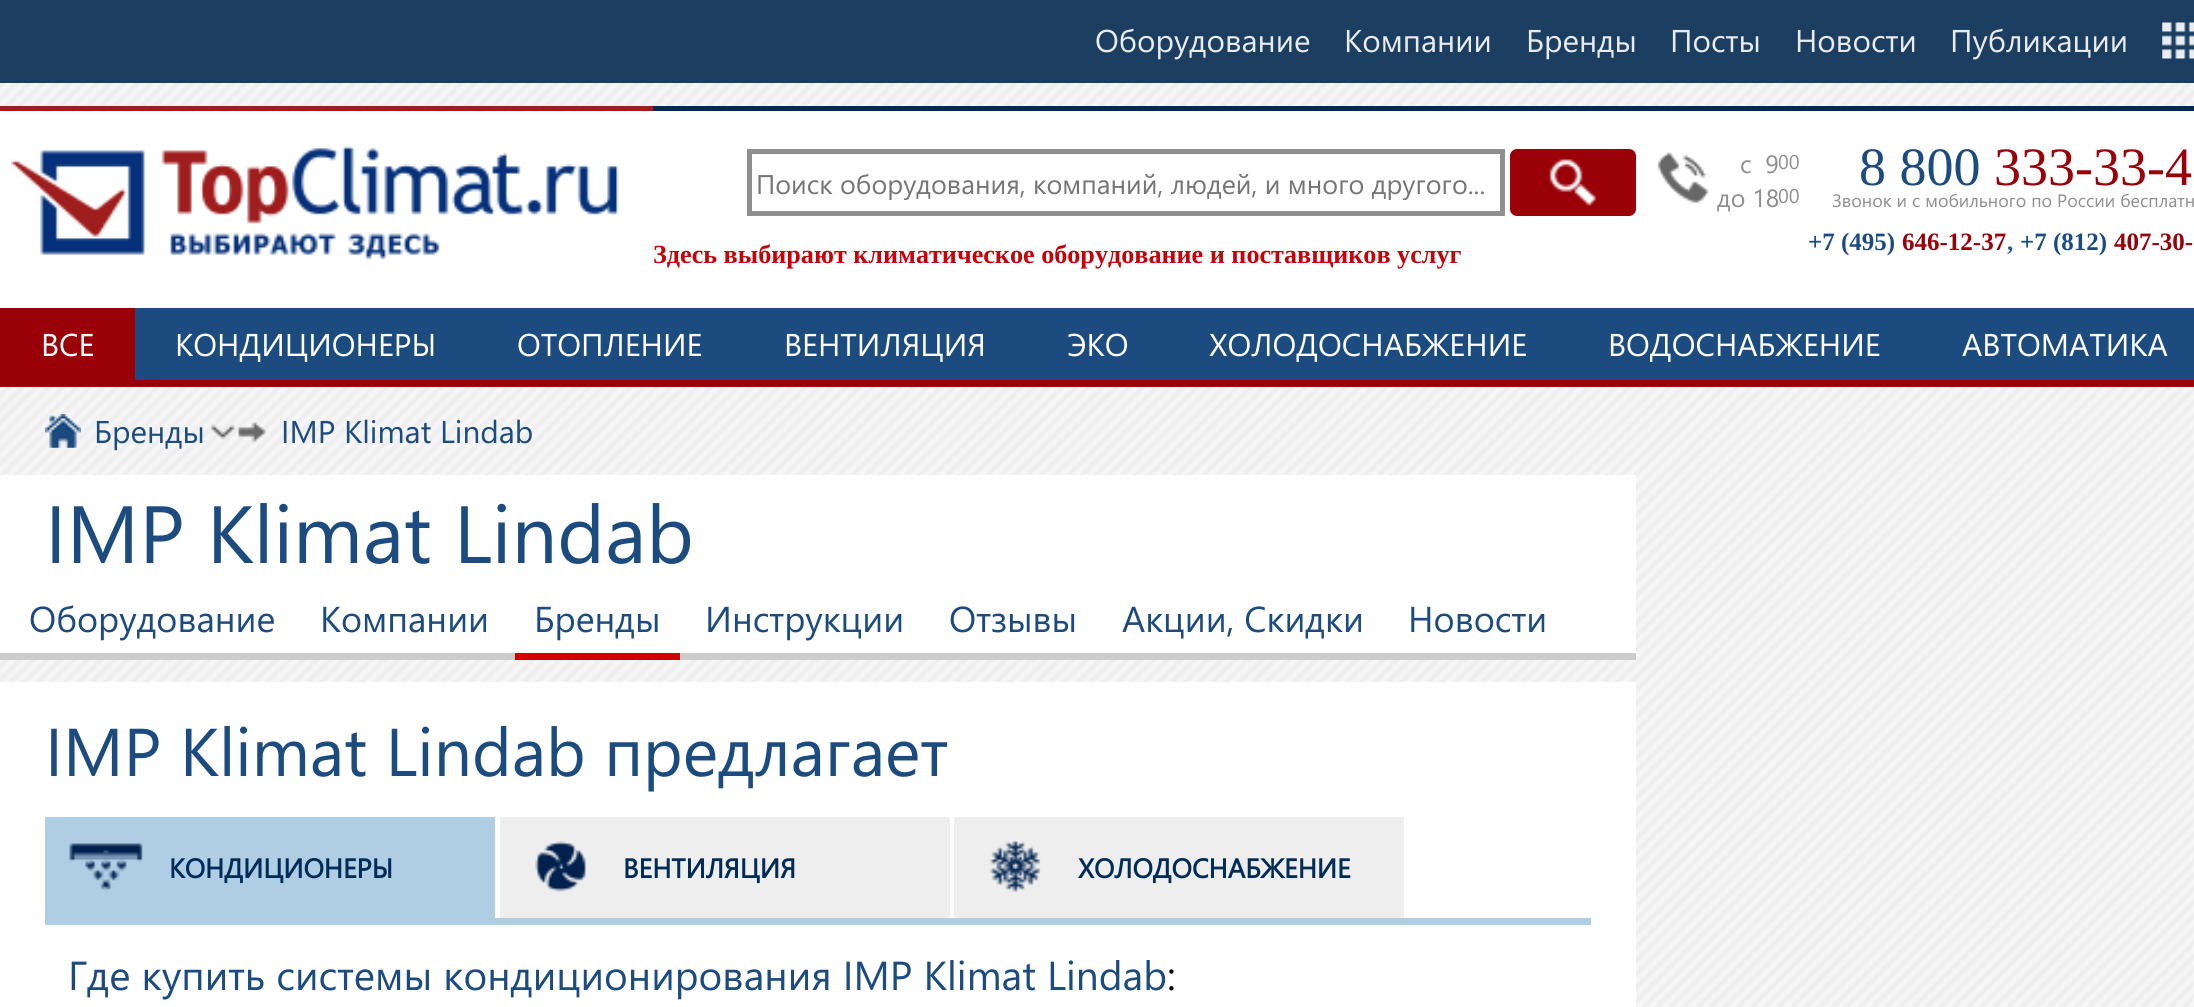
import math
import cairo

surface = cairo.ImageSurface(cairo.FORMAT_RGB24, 2194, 1007)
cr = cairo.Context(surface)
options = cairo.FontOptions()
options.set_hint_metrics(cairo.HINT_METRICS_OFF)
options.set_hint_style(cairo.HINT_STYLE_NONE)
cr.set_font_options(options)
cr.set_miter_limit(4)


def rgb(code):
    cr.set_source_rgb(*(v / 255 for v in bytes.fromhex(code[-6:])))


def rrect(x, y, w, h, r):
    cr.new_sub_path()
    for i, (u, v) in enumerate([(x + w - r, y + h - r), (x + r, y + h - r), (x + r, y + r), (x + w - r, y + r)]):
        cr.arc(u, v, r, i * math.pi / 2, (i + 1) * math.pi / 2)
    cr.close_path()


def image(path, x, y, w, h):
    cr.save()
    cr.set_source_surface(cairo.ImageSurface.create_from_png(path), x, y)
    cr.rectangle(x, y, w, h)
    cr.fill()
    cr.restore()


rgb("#f6f6f6")
cr.paint()
image("img/1.png", 0, 0, 2194, 1007)
cr.set_source_rgba(0.016, 0.165, 0.318, 0.9)
cr.rectangle(0, 0, 2194, 83)
cr.fill()
image("img/2.png", 2162, 22, 32, 37)
rgb("#ffffff")
cr.rectangle(0, 111, 2194, 197)
cr.fill()
rgb("#9f1d1d")
cr.rectangle(0, 106, 653, 5)
cr.fill()
image("img/3.png", 11, 145, 608, 115)
cr.rectangle(749.5, 151.5, 753, 62)
rgb("#8f8f8f")
cr.set_line_width(5)
cr.stroke()
rgb("#9a0008")
rrect(1510, 149, 126, 67, 7)
cr.fill()
image("img/4.png", 1549, 159, 47, 47)
rgb("#042a52")
cr.rectangle(653, 106, 1541, 5)
cr.fill()
image("img/5.png", 1657, 152, 52, 52)
for x, y, w, h, color in [
    (135, 308, 2059, 72, "#1c4b7f"),
    (0, 380, 2194, 7, "#9a0008"),
    (0, 308, 135, 72, "#9a0008"),
]:
    rgb(color)
    cr.rectangle(x, y, w, h)
    cr.fill()
image("img/6.png", 45, 414, 36, 34)
image("img/7.png", 211, 424, 24, 16)
image("img/8.png", 238, 422, 28, 22)
for x, y, w, h, color in [
    (0, 475, 1636, 178, "#ffffff"),
    (0, 653, 1636, 7, "#cccccc"),
    (515, 653, 165, 7, "#d20001"),
    (0, 682, 1636, 325, "#ffffff"),
    (45, 918, 1546, 7, "#b0cee3"),
    (45, 817, 450, 101, "#b0cee3"),
]:
    rgb(color)
    cr.rectangle(x, y, w, h)
    cr.fill()
image("img/9.png", 69, 843, 74, 48)
rgb("#eeeeee")
cr.rectangle(500, 817, 450, 101)
cr.fill()
image("img/10.png", 535, 841, 51, 51)
cr.rectangle(954, 817, 450, 101)
cr.fill()
image("img/11.png", 989, 841, 52, 51)
cr.select_font_face("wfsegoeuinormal")
cr.set_font_size(31.5)
rgb("#e8ecef")
for x, y, s in [
    (1095, 52, "Оборудование"),
    (1344, 52, "Компании"),
    (1526, 52, "Бренды"),
    (1670, 52, "Посты"),
    (1795, 52, "Новости"),
    (1950, 52, "Публикации"),
]:
    cr.move_to(x, y)
    cr.show_text(s)
cr.save()
cr.rectangle(756, 164, 740, 36)
cr.clip()
cr.set_font_size(27)
rgb("#757575")
cr.move_to(756, 194)
cr.show_text("Поиск оборудования, компаний, людей, и много другого...")
cr.restore()
cr.select_font_face("Liberation Serif", cairo.FONT_SLANT_NORMAL, cairo.FONT_WEIGHT_BOLD)
cr.set_font_size(26.15)
rgb("#c7020b")
cr.move_to(653, 263)
cr.show_text("Здесь выбирают климатическое оборудование и поставщиков услуг")
cr.select_font_face("wfsegoeuinormal")
cr.set_font_size(25)
rgb("#8f8f8f")
cr.move_to(1740, 173)
cr.show_text("c  9")
cr.set_font_size(20)
cr.move_to(1778, 169)
cr.show_text("00")
cr.set_font_size(25)
cr.move_to(1717, 207)
cr.show_text("до 18")
cr.set_font_size(20)
cr.move_to(1778, 203)
cr.show_text("00")
cr.select_font_face("Liberation Serif")
cr.set_font_size(54)
rgb("#1c4b7f")
cr.move_to(1859, 185)
cr.show_text("8 800")
rgb("#9a0008")
cr.move_to(1994, 185)
cr.show_text("333-33-4")
cr.select_font_face("wfsegoeuinormal")
cr.set_font_size(18)
rgb("#8f8f8f")
cr.move_to(1832, 207)
cr.show_text("Звонок и с мобильного по России бесплатн")
cr.select_font_face("Liberation Serif", cairo.FONT_SLANT_NORMAL, cairo.FONT_WEIGHT_BOLD)
cr.set_font_size(25)
rgb("#1c4b7f")
cr.move_to(1808, 250)
cr.show_text("+7 (495)")
rgb("#9a0008")
cr.move_to(1902, 250)
cr.show_text("646-12-37")
rgb("#2e5c8b")
cr.move_to(2007, 250)
cr.show_text(",")
rgb("#1c4b7f")
cr.move_to(2020, 250)
cr.show_text("+7 (812)")
rgb("#9a0008")
cr.move_to(2114, 250)
cr.show_text("407-30-")
cr.select_font_face("wfsegoeuinormal")
cr.set_font_size(31.5)
rgb("#ffffff")
for x, y, s in [
    (41, 356, "ВСЕ"),
    (175, 356, "КОНДИЦИОНЕРЫ"),
    (517, 356, "ОТОПЛЕНИЕ"),
    (784, 356, "ВЕНТИЛЯЦИЯ"),
    (1067, 356, "ЭКО"),
    (1209, 356, "ХОЛОДОСНАБЖЕНИЕ"),
    (1608, 356, "ВОДОСНАБЖЕНИЕ"),
    (1962, 356, "АВТОМАТИКА"),
]:
    cr.move_to(x, y)
    cr.show_text(s)
rgb("#1c4b7f")
cr.move_to(94, 443)
cr.show_text("Бренды")
cr.move_to(281, 443)
cr.show_text("IMP Klimat Lindab")
cr.set_font_size(81)
cr.move_to(45, 563)
cr.show_text("IMP Klimat Lindab")
cr.set_font_size(36)
for x, y, s in [
    (29, 632, "Оборудование"),
    (320, 632, "Компании"),
    (534, 632, "Бренды"),
    (705, 632, "Инструкции"),
    (949, 632, "Отзывы"),
    (1122, 632, "Акции, Скидки"),
    (1408, 632, "Новости"),
]:
    cr.move_to(x, y)
    cr.show_text(s)
cr.set_font_size(67.5)
cr.move_to(45, 776)
cr.show_text("IMP Klimat Lindab предлагает")
cr.select_font_face("wfsegoeuinormal", cairo.FONT_SLANT_NORMAL, cairo.FONT_WEIGHT_BOLD)
cr.set_font_size(27)
rgb("#002c58")
for x, y, s in [
    (169, 878, "КОНДИЦИОНЕРЫ"),
    (623, 878, "ВЕНТИЛЯЦИЯ"),
    (1078, 878, "ХОЛОДОСНАБЖЕНИЕ"),
]:
    cr.move_to(x, y)
    cr.show_text(s)
cr.select_font_face("wfsegoeuinormal")
cr.set_font_size(40.5)
rgb("#1c4b7f")
cr.move_to(68, 990)
cr.show_text("Где купить системы кондиционирования IMP Klimat Lindab")
rgb("#000000")
cr.move_to(1167, 990)
cr.show_text(":")
surface.write_to_png("page.png")
